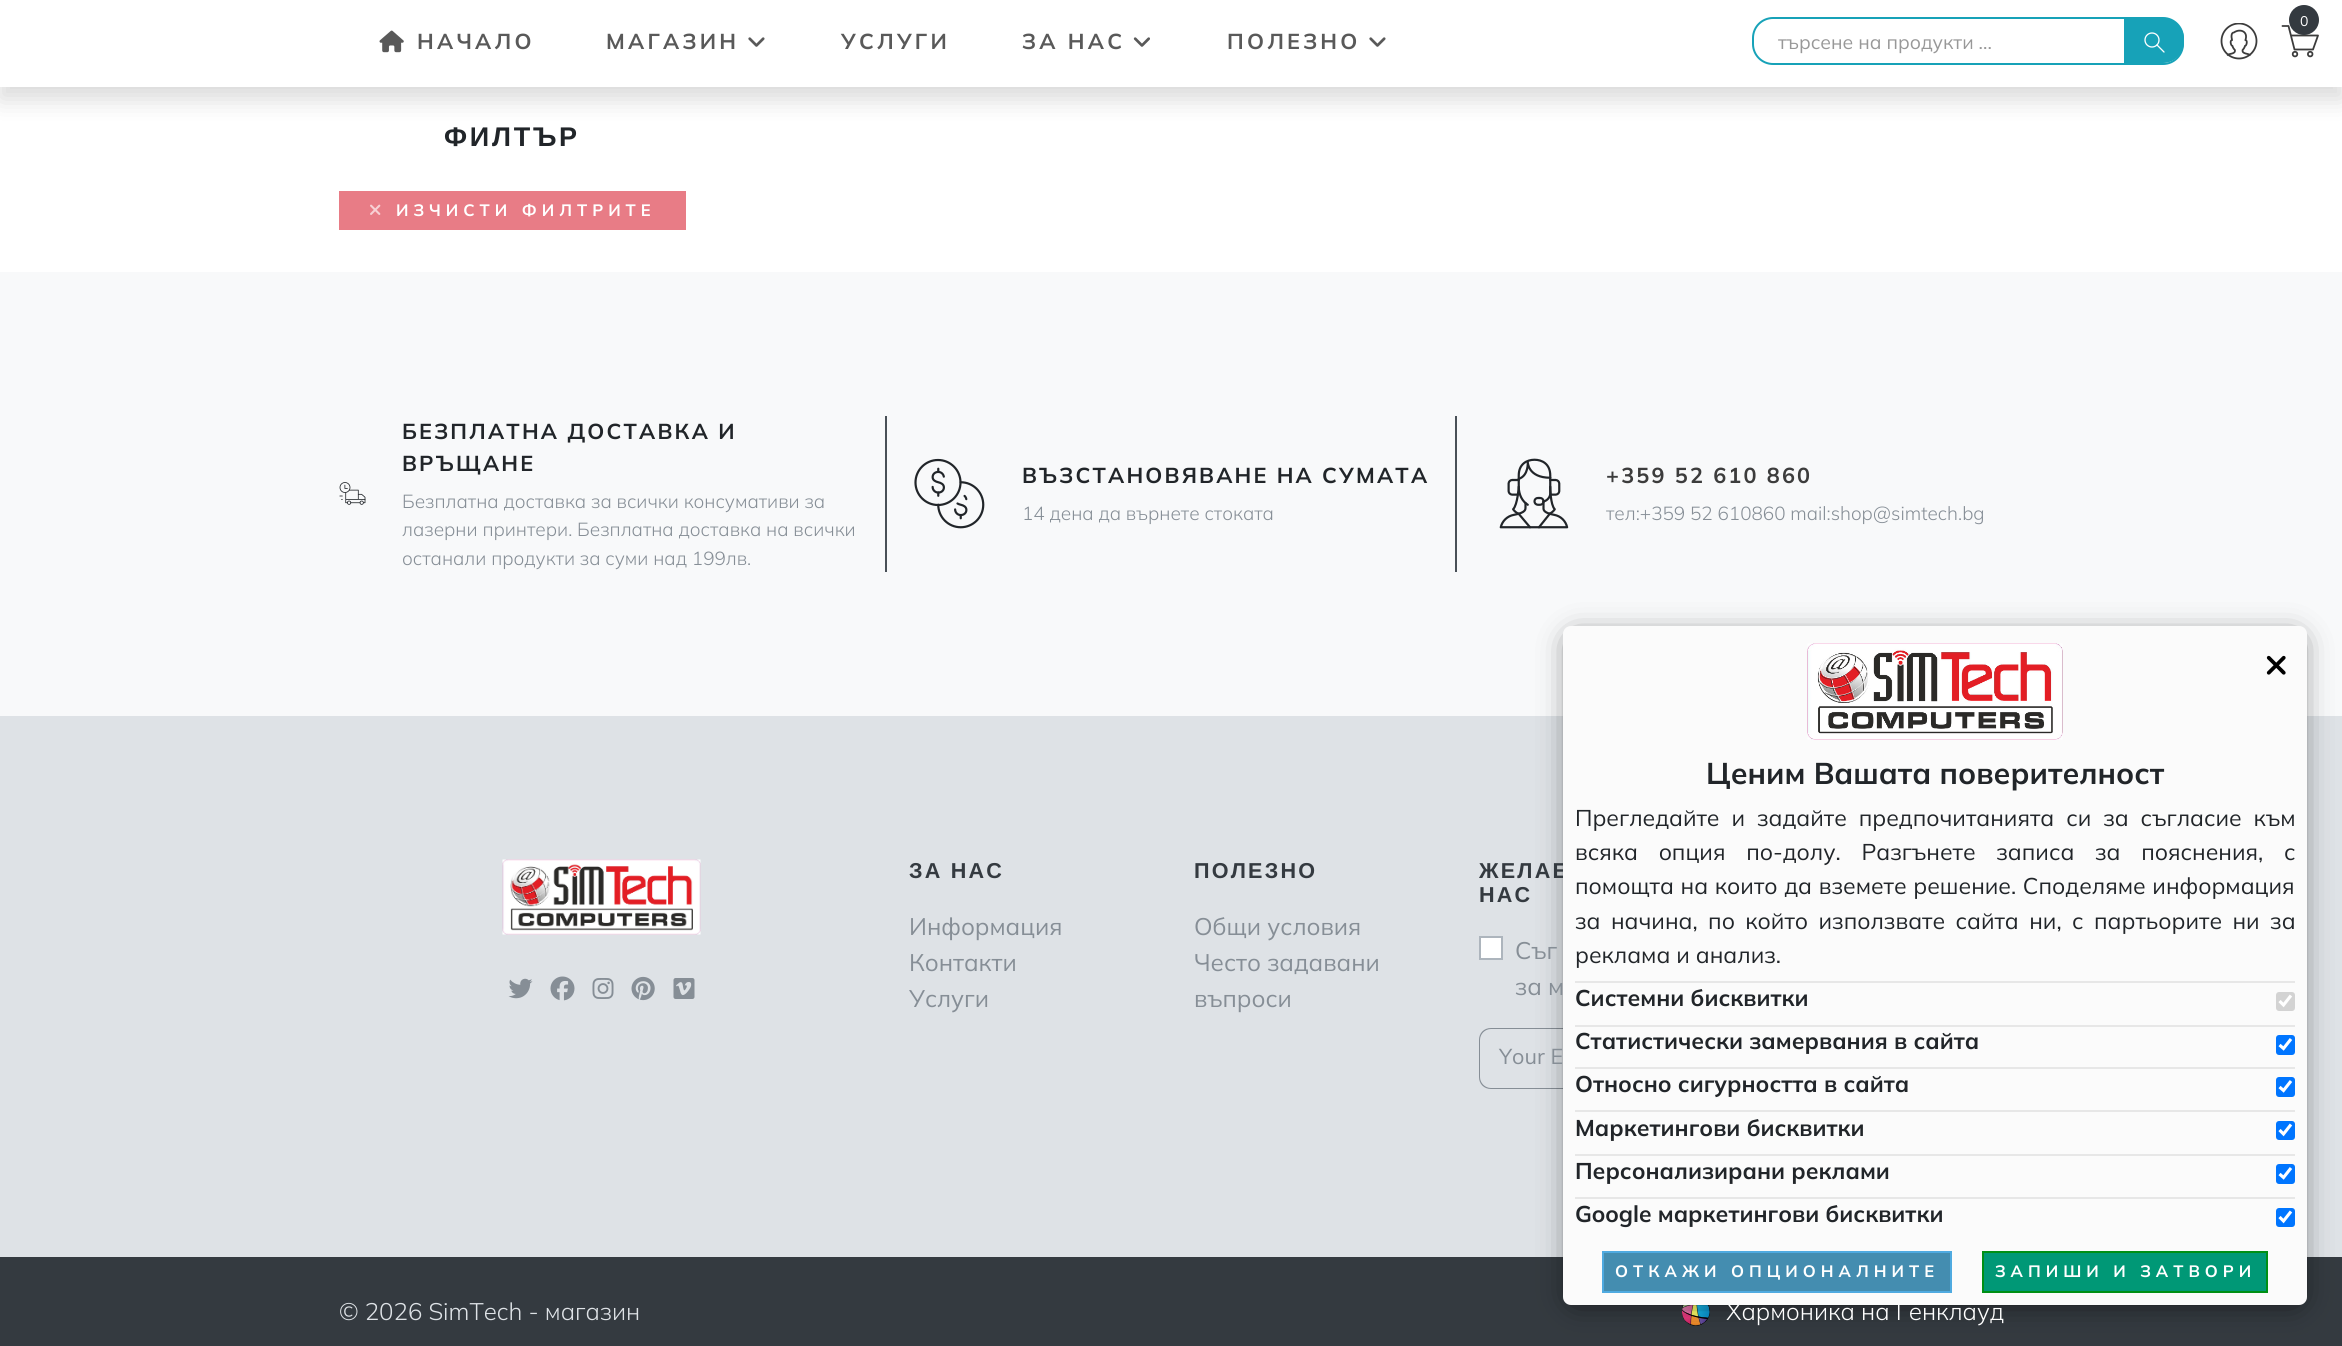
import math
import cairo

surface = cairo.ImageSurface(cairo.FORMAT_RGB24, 2342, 1346)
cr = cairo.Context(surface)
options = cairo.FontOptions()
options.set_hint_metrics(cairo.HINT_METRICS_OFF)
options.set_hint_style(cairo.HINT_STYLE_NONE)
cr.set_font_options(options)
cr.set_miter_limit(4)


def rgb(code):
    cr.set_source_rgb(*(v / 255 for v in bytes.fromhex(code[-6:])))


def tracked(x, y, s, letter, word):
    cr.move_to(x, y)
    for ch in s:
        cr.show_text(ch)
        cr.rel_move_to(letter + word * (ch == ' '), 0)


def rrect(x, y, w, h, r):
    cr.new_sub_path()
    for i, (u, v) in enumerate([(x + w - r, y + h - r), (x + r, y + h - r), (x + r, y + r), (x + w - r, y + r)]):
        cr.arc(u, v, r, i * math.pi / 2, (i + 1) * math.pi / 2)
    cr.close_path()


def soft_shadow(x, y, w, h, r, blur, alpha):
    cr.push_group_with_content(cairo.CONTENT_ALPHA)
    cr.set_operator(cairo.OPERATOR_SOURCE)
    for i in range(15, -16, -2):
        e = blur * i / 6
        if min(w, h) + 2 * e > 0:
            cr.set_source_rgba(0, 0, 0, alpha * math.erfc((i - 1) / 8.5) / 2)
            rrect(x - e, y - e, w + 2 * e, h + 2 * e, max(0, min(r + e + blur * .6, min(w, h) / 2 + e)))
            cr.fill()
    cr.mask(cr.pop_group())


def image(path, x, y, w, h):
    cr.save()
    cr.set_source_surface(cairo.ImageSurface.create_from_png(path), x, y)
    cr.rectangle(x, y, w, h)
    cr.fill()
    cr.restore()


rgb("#ffffff")
cr.paint()
rgb("#000000")
soft_shadow(0, 12, 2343, 87, 0, 12, 0.15)
rgb("#ffffff")
cr.rectangle(0, 0, 2342, 87)
cr.fill()
image("img/1.png", 379, 30, 25, 23)
image("img/2.png", 748, 37, 17, 10)
image("img/3.png", 1133, 37, 17, 10)
image("img/2.png", 1369, 37, 17, 10)
cr.new_path()
cr.move_to(2282.5, 26)
cr.line_to(2288.5, 26)
cr.line_to(2294.5, 49.5)
cr.line_to(2313, 49.5)
cr.line_to(2318, 35.5)
cr.line_to(2291, 35.5)
rgb("#3c3c3c")
cr.set_line_width(1.8)
cr.set_line_cap(cairo.LINE_CAP_ROUND)
cr.set_line_join(cairo.LINE_JOIN_ROUND)
cr.stroke()
rgb("#343a40")
cr.arc(2304, 20, 15, 0, 2 * math.pi)
cr.fill()
cr.arc(2295, 54.1, 2.3, 0, 2 * math.pi)
rgb("#3c3c3c")
cr.set_line_cap(cairo.LINE_CAP_BUTT)
cr.set_line_join(cairo.LINE_JOIN_MITER)
cr.stroke()
cr.arc(2310.2, 54.1, 2.3, 0, 2 * math.pi)
cr.stroke()
rrect(1753, 18, 430, 46, 20)
rgb("#17a2b8")
cr.set_line_width(2)
cr.stroke()
cr.new_path()
cr.move_to(2124, 18)
cr.line_to(2163, 18)
cr.curve_to(2174.5, 18, 2184, 27.5, 2184, 39)
cr.line_to(2184, 42)
cr.curve_to(2184, 53.5, 2174.5, 63, 2163, 63)
cr.line_to(2124, 63)
cr.close_path()
cr.fill()
cr.new_path()
cr.move_to(2157, 45)
cr.line_to(2164, 52)
rgb("#ffffff")
cr.set_line_width(1.3)
cr.set_line_cap(cairo.LINE_CAP_ROUND)
cr.set_line_join(cairo.LINE_JOIN_ROUND)
cr.stroke()
cr.arc(2152, 40, 7, 0, 2 * math.pi)
cr.set_line_cap(cairo.LINE_CAP_BUTT)
cr.set_line_join(cairo.LINE_JOIN_MITER)
cr.stroke()
image("img/4.png", 2220, 23, 38, 37)
rgb("#e87c86")
cr.rectangle(339, 191, 347, 39)
cr.fill()
image("img/5.png", 370, 204, 11, 11)
rgb("#f8f9fa")
cr.rectangle(0, 272, 2342, 444)
cr.fill()
rgb("#495057")
cr.rectangle(885, 416, 2, 156)
cr.fill()
image("img/6.png", 339, 482, 27, 23)
cr.rectangle(1455, 416, 2, 156)
cr.fill()
image("img/7.png", 914, 458, 71, 71)
image("img/8.png", 1499, 458, 70, 71)
rgb("#dee2e6")
cr.rectangle(0, 716, 2342, 541)
cr.fill()
image("img/9.png", 502, 859, 199, 76)
image("img/10.png", 508, 978, 25, 21)
image("img/11.png", 550, 976, 25, 25)
image("img/12.png", 592, 978, 22, 21)
image("img/13.png", 631, 976, 24, 25)
image("img/14.png", 673, 978, 22, 21)
rgb("#ffffff")
cr.rectangle(1480, 937, 22, 22)
cr.fill_preserve()
rgb("#adb5bd")
cr.set_line_width(2)
cr.stroke()
rgb("#868e96")
cr.set_fill_rule(cairo.FILL_RULE_EVEN_ODD)
cr.new_path()
cr.move_to(1491, 1028)
cr.line_to(1936, 1028)
cr.line_to(1936, 1089)
cr.line_to(1491, 1089)
cr.curve_to(1484, 1089, 1479, 1084, 1479, 1077)
cr.line_to(1479, 1040)
cr.curve_to(1479, 1033, 1484, 1028, 1491, 1028)
cr.close_path()
cr.move_to(1491, 1029)
cr.line_to(1936, 1029)
cr.line_to(1936, 1088)
cr.line_to(1491, 1088)
cr.curve_to(1485, 1088, 1480, 1083, 1480, 1077)
cr.line_to(1480, 1040)
cr.curve_to(1480, 1034, 1485, 1029, 1491, 1029)
cr.close_path()
cr.fill()
rgb("#343a40")
cr.rectangle(0, 1257, 2342, 89)
cr.fill()
image("img/15.png", 1682, 1305, 28, 21)
rgb("#000000")
soft_shadow(1575, 642, 720, 656, 0, 16, 0.8)
cr.select_font_face("Mulish", cairo.FONT_SLANT_NORMAL, cairo.FONT_WEIGHT_BOLD)
cr.set_font_size(21.6)
rgb("#595959")
for x, y, s in [
    (417, 49, "НАЧАЛО"),
    (606, 49, "МАГАЗИН"),
    (841, 49, "УСЛУГИ"),
    (1022, 49, "ЗА НАС"),
    (1227, 49, "ПОЛЕЗНО"),
]:
    tracked(x, y, s, 3.25, 0)
cr.select_font_face("Mulish")
cr.set_font_size(14)
rgb("#ffffff")
cr.move_to(2300, 26)
cr.show_text("0")
cr.set_font_size(19.25)
rgb("#989898")
cr.move_to(1778, 49)
cr.show_text("търсене на продукти ...")
cr.select_font_face("Liberation Sans", cairo.FONT_SLANT_NORMAL, cairo.FONT_WEIGHT_BOLD)
cr.set_font_size(27)
rgb("#212529")
tracked(444, 146, "ФИЛТЪР", 2.75, 0)
cr.select_font_face("Mulish", cairo.FONT_SLANT_NORMAL, cairo.FONT_WEIGHT_BOLD)
cr.set_font_size(16.5)
rgb("#ffffff")
tracked(396, 216, "ИЗЧИСТИ ФИЛТРИТЕ", 5, 0)
cr.set_font_size(21.6)
rgb("#212529")
tracked(402, 439, "БЕЗПЛАТНА ДОСТАВКА И", 2.2, 0)
tracked(402, 471, "ВРЪЩАНЕ", 2.2, 0)
cr.select_font_face("Mulish Light")
cr.set_font_size(18.9)
rgb("#868e96")
for x, y, s in [
    (402, 508, "Безплатна доставка за всички консумативи за"),
    (402, 536, "лазерни принтери. Безплатна доставка на всички"),
    (402, 565, "останали продукти за суми над 199лв."),
]:
    cr.move_to(x, y)
    cr.show_text(s)
cr.select_font_face("Mulish", cairo.FONT_SLANT_NORMAL, cairo.FONT_WEIGHT_BOLD)
cr.set_font_size(21.6)
rgb("#212529")
tracked(1022, 483, "ВЪЗСТАНОВЯВАНЕ НА СУМАТА", 2.2, 0)
cr.select_font_face("Mulish Light")
cr.set_font_size(18.9)
rgb("#868e96")
cr.move_to(1022, 520)
cr.show_text("14 дена да върнете стоката")
cr.select_font_face("Mulish", cairo.FONT_SLANT_NORMAL, cairo.FONT_WEIGHT_BOLD)
cr.set_font_size(21.6)
rgb("#3c3c3c")
tracked(1606, 483, "+359 52 610 860", 2.2, 0)
cr.select_font_face("Mulish Light")
cr.set_font_size(18.9)
rgb("#868e96")
cr.move_to(1606, 520)
cr.show_text("тел:+359 52 610860 mail:shop@simtech.bg")
cr.select_font_face("Liberation Sans", cairo.FONT_SLANT_NORMAL, cairo.FONT_WEIGHT_BOLD)
cr.set_font_size(21.6)
rgb("#343a40")
tracked(909, 878, "ЗА НАС", 2.2, 0)
cr.select_font_face("Mulish")
cr.set_font_size(24)
rgb("#868e96")
for x, y, s in [
    (909, 935, "Информация"),
    (909, 971, "Контакти"),
    (909, 1007, "Услуги"),
]:
    cr.move_to(x, y)
    cr.show_text(s)
cr.select_font_face("Liberation Sans", cairo.FONT_SLANT_NORMAL, cairo.FONT_WEIGHT_BOLD)
cr.set_font_size(21.6)
rgb("#343a40")
tracked(1194, 878, "ПОЛЕЗНО", 2.2, 0)
cr.select_font_face("Mulish")
cr.set_font_size(24)
rgb("#868e96")
for x, y, s in [
    (1194, 935, "Общи условия"),
    (1194, 971, "Често задавани"),
    (1194, 1007, "въпроси"),
]:
    cr.move_to(x, y)
    cr.show_text(s)
cr.select_font_face("Liberation Sans", cairo.FONT_SLANT_NORMAL, cairo.FONT_WEIGHT_BOLD)
cr.set_font_size(21.6)
rgb("#343a40")
tracked(1479, 878, "ЖЕЛАЕ", 2.2, 0)
tracked(1479, 902, "НАС", 2.2, 0)
cr.select_font_face("Mulish")
cr.set_font_size(24)
rgb("#868e96")
cr.move_to(1515, 959)
cr.show_text("Съг")
cr.move_to(1515, 995)
cr.show_text("за м")
cr.set_font_size(21.6)
cr.move_to(1499, 1064)
cr.show_text("Your E")
cr.select_font_face("Mulish Light")
cr.set_font_size(24)
rgb("#dee2e6")
cr.move_to(339, 1320)
cr.show_text("© 2026 SimTech - магазин")
rgb("#ffffff")
cr.move_to(1726, 1320)
cr.show_text("Хармоника на Генклауд")
rgb("#fbfbfb")
rrect(1563, 626, 744, 679, 8)
cr.fill()
image("img/16.png", 1807, 643, 256, 97)
image("img/17.png", 2266, 655, 20, 20)
cr.select_font_face("Mulish", cairo.FONT_SLANT_NORMAL, cairo.FONT_WEIGHT_BOLD)
cr.set_font_size(30)
rgb("#212529")
cr.move_to(1706, 784)
cr.show_text("Ценим Вашата поверителност")
cr.select_font_face("Mulish")
cr.set_font_size(22.8)
tracked(1575, 826, "Прегледайте и задайте предпочитанията си за съгласие към", 0, 6)
tracked(1575, 860, "всяка опция по-долу. Разгънете записа за пояснения, с", 0, 14.75)
tracked(1575, 894, "помощта на които да вземете решение. Споделяме информация", 0, 0.75)
tracked(1575, 929, "за начина, по който използвате сайта ни, с партьорите ни за", 0, 4.5)
cr.move_to(1575, 963)
cr.show_text("реклама и анализ.")
rgb("#e7e7e7")
cr.rectangle(1575, 981, 720, 2)
cr.fill()
cr.select_font_face("Mulish", cairo.FONT_SLANT_NORMAL, cairo.FONT_WEIGHT_BOLD)
rgb("#212529")
cr.move_to(1575, 1006)
cr.show_text("Системни бисквитки")
rgb("#d3d3d3")
rrect(2276, 992, 19, 19, 3)
cr.fill()
cr.new_path()
cr.move_to(2279.5, 1001)
cr.line_to(2283.5, 1005)
cr.line_to(2291, 995.5)
rgb("#ffffff")
cr.set_line_width(3.1)
cr.stroke()
rgb("#e7e7e7")
cr.rectangle(1575, 1025, 720, 2)
cr.fill()
rgb("#212529")
cr.move_to(1575, 1049)
cr.show_text("Статистически замервания в сайта")
rgb("#0075ff")
rrect(2276, 1035, 19, 20, 3)
cr.fill()
cr.new_path()
cr.move_to(2279.5, 1045)
cr.line_to(2283.5, 1048.5)
cr.line_to(2291, 1039)
rgb("#ffffff")
cr.stroke()
rgb("#e7e7e7")
cr.rectangle(1575, 1067, 720, 2)
cr.fill()
rgb("#212529")
cr.move_to(1575, 1092)
cr.show_text("Относно сигурността в сайта")
rgb("#0075ff")
rrect(2276, 1077, 19, 20, 3)
cr.fill()
cr.new_path()
cr.move_to(2279.5, 1087)
cr.line_to(2283.5, 1090.5)
cr.line_to(2291, 1081)
rgb("#ffffff")
cr.stroke()
rgb("#e7e7e7")
cr.rectangle(1575, 1110, 720, 2)
cr.fill()
rgb("#212529")
cr.move_to(1575, 1136)
cr.show_text("Маркетингови бисквитки")
rgb("#0075ff")
rrect(2276, 1121, 19, 19, 3)
cr.fill()
cr.new_path()
cr.move_to(2279.5, 1130)
cr.line_to(2283.5, 1134)
cr.line_to(2291, 1124.5)
rgb("#ffffff")
cr.stroke()
rgb("#e7e7e7")
cr.rectangle(1575, 1154, 720, 2)
cr.fill()
rgb("#212529")
cr.move_to(1575, 1179)
cr.show_text("Персонализирани реклами")
rgb("#0075ff")
rrect(2276, 1164, 19, 20, 3)
cr.fill()
cr.new_path()
cr.move_to(2279.5, 1174)
cr.line_to(2283.5, 1177.5)
cr.line_to(2291, 1168)
rgb("#ffffff")
cr.stroke()
rgb("#e7e7e7")
cr.rectangle(1575, 1197, 720, 2)
cr.fill()
rgb("#212529")
cr.move_to(1575, 1222)
cr.show_text("Google маркетингови бисквитки")
rgb("#0075ff")
rrect(2276, 1208, 19, 19, 3)
cr.fill()
cr.new_path()
cr.move_to(2279.5, 1217)
cr.line_to(2283.5, 1221)
cr.line_to(2291, 1211.5)
rgb("#ffffff")
cr.stroke()
rgb("#448db0")
cr.rectangle(1603, 1252, 348, 40)
cr.fill_preserve()
rgb("#4faae0")
cr.set_line_width(2)
cr.stroke()
cr.set_font_size(16.5)
rgb("#ffffff")
tracked(1615, 1277, "ОТКАЖИ ОПЦИОНАЛНИТЕ", 5, 0)
rgb("#009876")
cr.rectangle(1983, 1252, 284, 40)
cr.fill_preserve()
rgb("#009015")
cr.stroke()
rgb("#ffffff")
tracked(1995, 1277, "ЗАПИШИ И ЗАТВОРИ", 5, 0)
surface.write_to_png("page.png")
